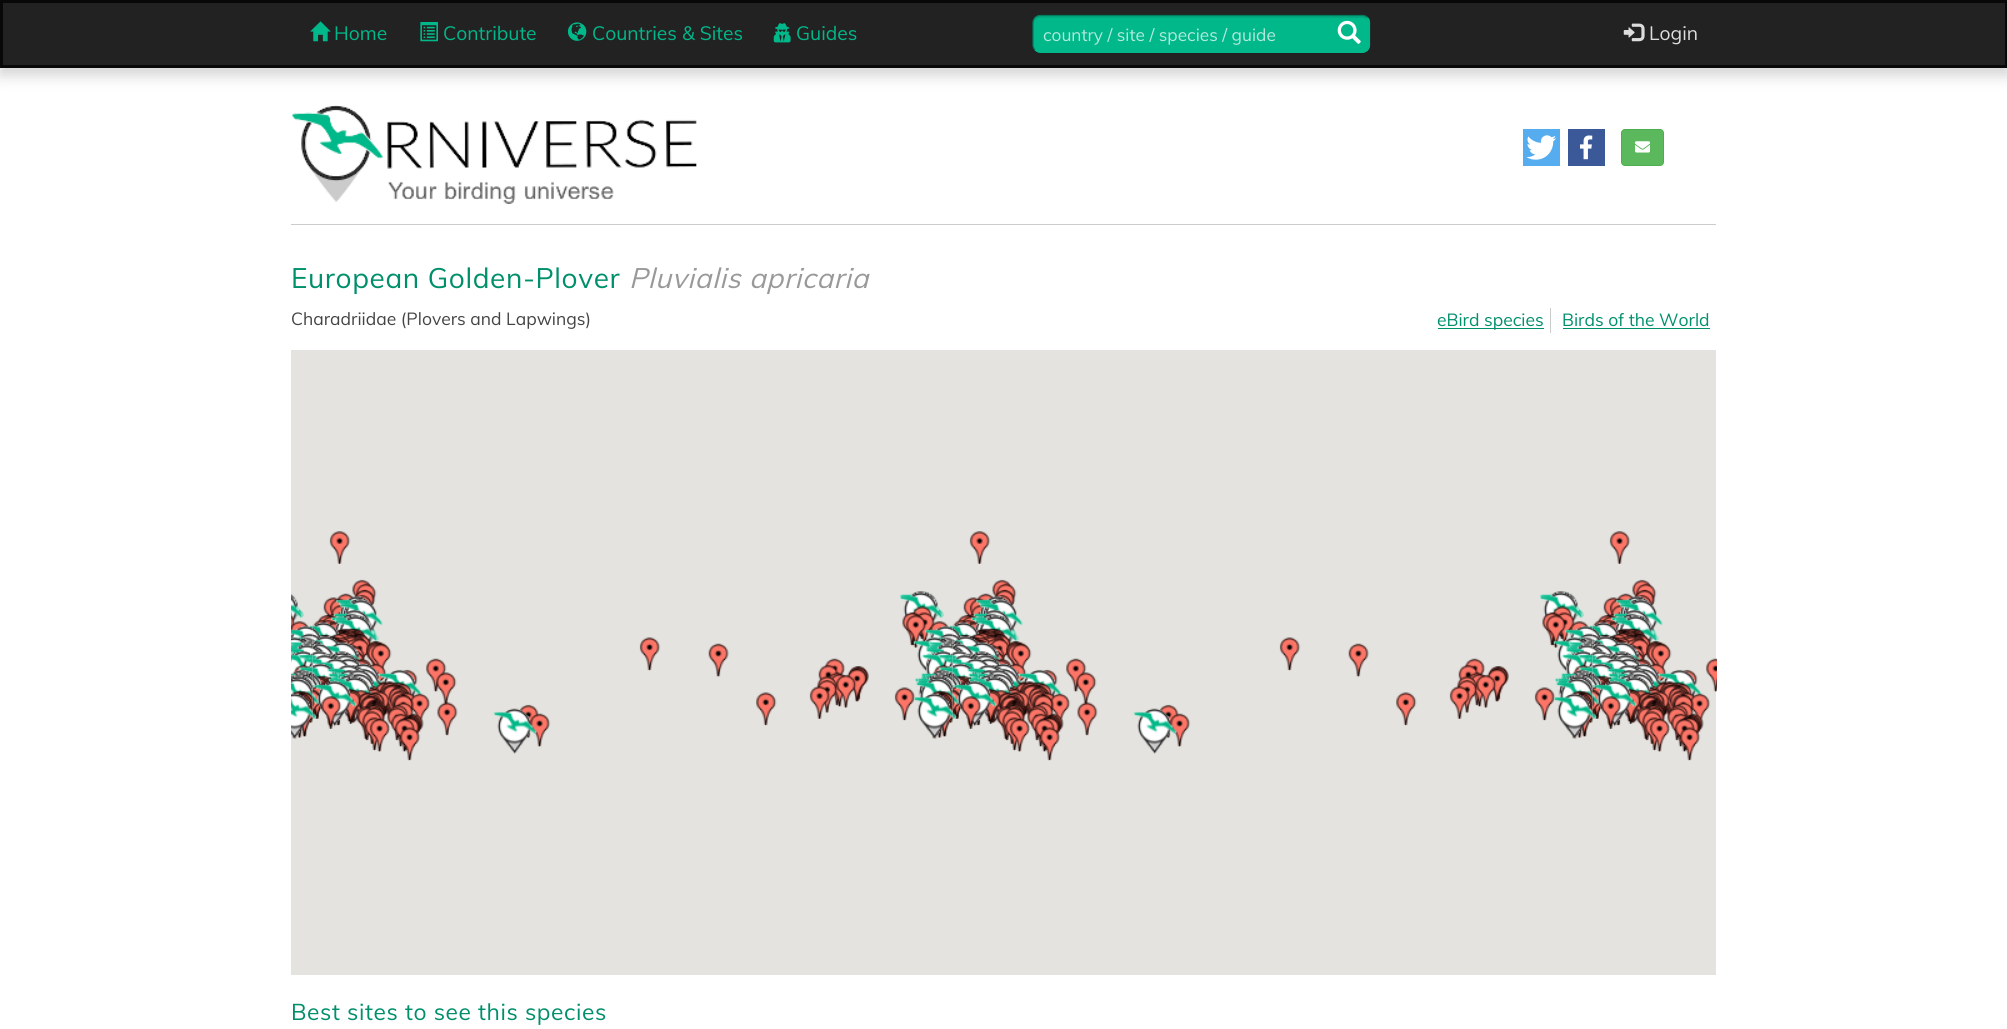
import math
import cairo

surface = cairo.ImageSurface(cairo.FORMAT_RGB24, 2007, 1029)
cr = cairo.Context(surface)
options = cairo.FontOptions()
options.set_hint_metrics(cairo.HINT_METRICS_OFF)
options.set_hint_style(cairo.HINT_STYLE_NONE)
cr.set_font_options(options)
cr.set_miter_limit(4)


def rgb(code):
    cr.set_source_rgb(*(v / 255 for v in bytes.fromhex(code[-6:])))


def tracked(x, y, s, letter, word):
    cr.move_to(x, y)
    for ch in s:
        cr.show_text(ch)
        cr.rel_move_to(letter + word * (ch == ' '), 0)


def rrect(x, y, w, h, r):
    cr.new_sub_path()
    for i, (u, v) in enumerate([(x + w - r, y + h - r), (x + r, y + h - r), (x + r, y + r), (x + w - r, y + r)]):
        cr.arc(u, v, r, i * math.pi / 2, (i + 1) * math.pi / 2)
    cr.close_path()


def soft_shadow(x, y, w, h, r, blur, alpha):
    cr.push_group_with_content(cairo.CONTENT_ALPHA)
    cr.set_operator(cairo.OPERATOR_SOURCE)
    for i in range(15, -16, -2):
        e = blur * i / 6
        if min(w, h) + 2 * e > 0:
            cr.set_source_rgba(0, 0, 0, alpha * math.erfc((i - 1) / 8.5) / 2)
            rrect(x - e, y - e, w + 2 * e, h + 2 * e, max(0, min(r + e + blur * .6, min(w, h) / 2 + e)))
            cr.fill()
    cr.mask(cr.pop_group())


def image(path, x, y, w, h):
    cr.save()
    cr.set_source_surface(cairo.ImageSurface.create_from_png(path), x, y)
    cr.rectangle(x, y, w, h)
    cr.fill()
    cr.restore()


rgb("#ffffff")
cr.paint()
rgb("#000000")
soft_shadow(0, 8, 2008, 67, 0, 7.5, 0.18)
rgb("#222222")
cr.rectangle(1.5, 1.5, 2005, 65)
cr.fill_preserve()
rgb("#080808")
cr.set_line_width(3)
cr.stroke()
image("img/1.png", 310, 21, 21, 21)
image("img/2.png", 420, 22, 18, 20)
image("img/3.png", 567, 22, 20, 19)
image("img/4.png", 773, 23, 18, 20)
image("img/5.png", 1623, 23, 22, 19)
rgb("#00b88a")
rrect(1033, 15, 337, 38, 8)
cr.fill()
rgb("#00aa80")
cr.new_path()
cr.move_to(1040, 18)
cr.line_to(1362, 18)
cr.curve_to(1366, 18, 1369, 20, 1369, 24)
cr.line_to(1369, 22)
cr.curve_to(1369, 19, 1366, 16, 1363, 16)
cr.line_to(1040, 16)
cr.curve_to(1037, 16, 1034, 19, 1034, 22)
cr.line_to(1034, 24)
cr.curve_to(1034, 20, 1037, 18, 1040, 18)
cr.close_path()
cr.fill()
cr.new_path()
cr.move_to(1367.5, 17.5)
cr.curve_to(1368.5, 19, 1369.5, 20.5, 1369.5, 22.5)
cr.line_to(1369.5, 45)
cr.curve_to(1369.5, 47, 1368.5, 48.5, 1367.5, 50)
cr.curve_to(1366, 51, 1364.5, 52, 1362.5, 52)
cr.line_to(1040, 52)
cr.curve_to(1038, 52, 1036.5, 51, 1035, 50)
rgb("#00b88a")
cr.set_line_width(1.2)
cr.stroke()
cr.new_path()
cr.move_to(1035, 50)
cr.curve_to(1034, 48.5, 1033, 47, 1033, 45)
cr.line_to(1033, 22.5)
cr.curve_to(1033, 20.5, 1034, 19, 1035, 17.5)
cr.curve_to(1036.5, 16.5, 1038, 15.5, 1040, 15.5)
cr.line_to(1362.5, 15.5)
cr.curve_to(1364.5, 15.5, 1366, 16.5, 1367.5, 17.5)
rgb("#007b5c")
cr.stroke()
image("img/6.png", 1337, 20, 24, 24)
image("img/7.png", 292, 105, 405, 99)
rgb("#55acee")
cr.rectangle(1523, 129, 37, 37)
cr.fill()
image("img/8.png", 1526, 135, 31, 25)
rgb("#3b5998")
cr.rectangle(1568, 129, 37, 37)
cr.fill()
image("img/9.png", 1580, 135, 13, 25)
rgb("#5cb85c")
rrect(1621.5, 129.5, 42, 36, 3.5)
cr.fill_preserve()
rgb("#4cae4c")
cr.set_line_width(1)
cr.stroke()
image("img/10.png", 1635, 141, 15, 12)
for x, y, w, h, color in [
    (291, 224, 1425, 1, "#cccccc"),
    (1550, 308, 1, 25, "#cccccc"),
    (1438, 328, 106, 1, "#008f6b"),
    (1563, 328, 147, 1, "#008f6b"),
    (291, 350, 1425, 625, "#e5e3df"),
]:
    rgb(color)
    cr.rectangle(x, y, w, h)
    cr.fill()
image("img/12.png", 312, 531, 239, 230)
image("img/11.png", 291, 593, 22, 146)
image("img/14.png", 952, 531, 239, 230)
image("img/13.png", 639, 591, 314, 148)
image("img/15.png", 1279, 591, 314, 148)
image("img/16.png", 1592, 531, 125, 230)
cr.select_font_face("Muli")
cr.set_font_size(19.25)
rgb("#00b88a")
for x, y, s in [
    (334, 40, "Home"),
    (443, 40, "Contribute"),
    (592, 40, "Countries & Sites"),
    (796, 40, "Guides"),
]:
    cr.move_to(x, y)
    cr.show_text(s)
rgb("#dddddd")
cr.move_to(1649, 40)
cr.show_text("Login")
cr.set_font_size(17.25)
rgb("#b2eadc")
cr.move_to(1043, 41)
cr.show_text("country / site / species / guide")
cr.set_font_size(28)
rgb("#008f6b")
tracked(291, 288, "European Golden-Plover", 0.6, 0)
cr.select_font_face("Muli", cairo.FONT_SLANT_ITALIC)
rgb("#999999")
tracked(629, 288, "Pluvialis apricaria", 0.6, 0)
cr.select_font_face("Muli")
cr.set_font_size(17.5)
rgb("#444444")
cr.move_to(291, 325)
cr.show_text("Charadriidae (Plovers and Lapwings)")
rgb("#008f6b")
cr.move_to(1437, 326)
cr.show_text("eBird species")
cr.move_to(1562, 326)
cr.show_text("Birds of the World")
cr.set_font_size(22.75)
tracked(291, 1020, "Best sites to see this species", 0.6, 0)
surface.write_to_png("page.png")
